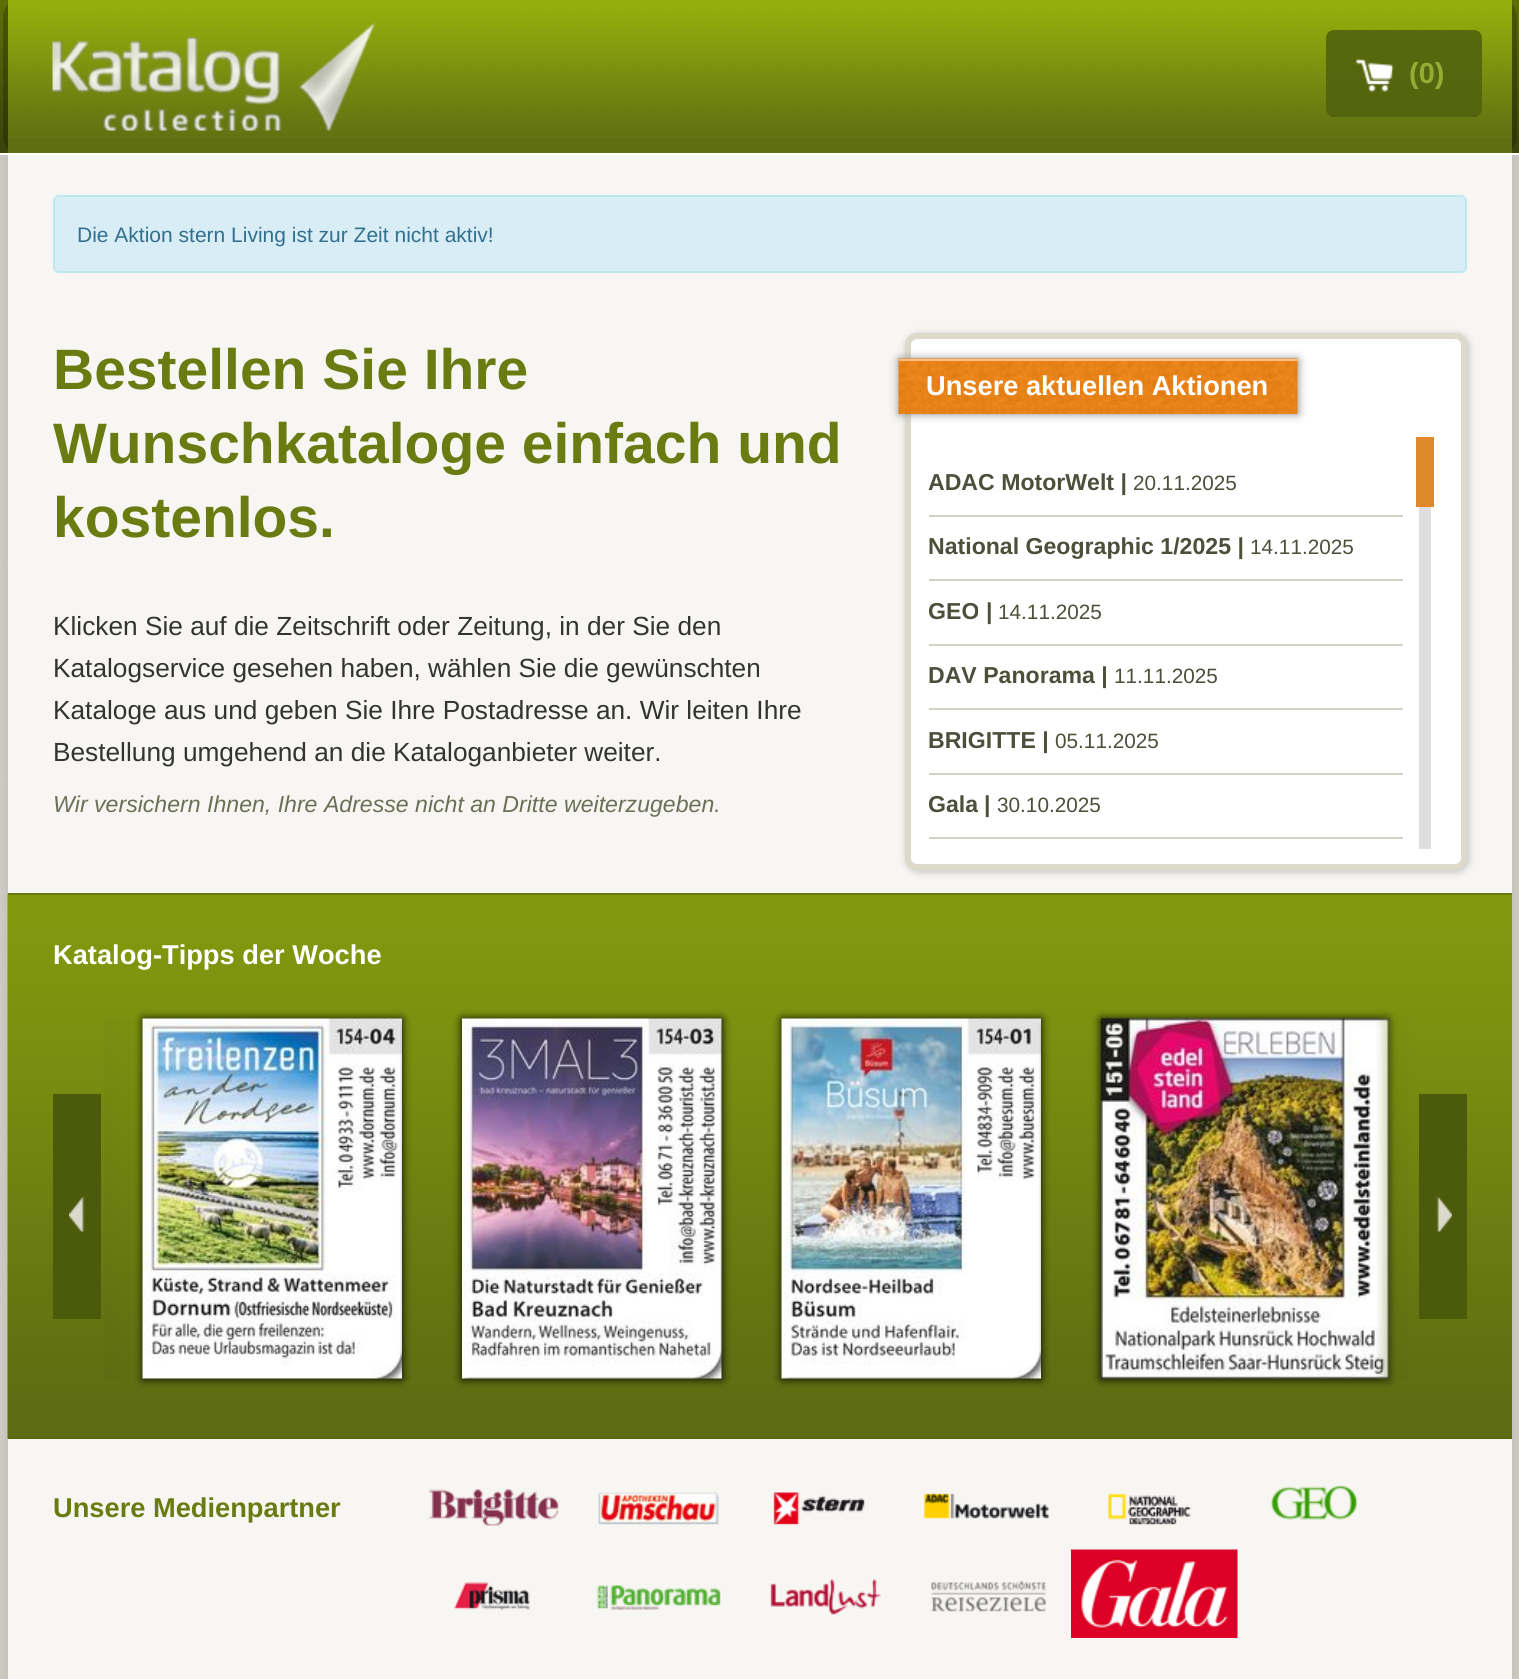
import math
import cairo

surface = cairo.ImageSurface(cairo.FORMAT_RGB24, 1519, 1679)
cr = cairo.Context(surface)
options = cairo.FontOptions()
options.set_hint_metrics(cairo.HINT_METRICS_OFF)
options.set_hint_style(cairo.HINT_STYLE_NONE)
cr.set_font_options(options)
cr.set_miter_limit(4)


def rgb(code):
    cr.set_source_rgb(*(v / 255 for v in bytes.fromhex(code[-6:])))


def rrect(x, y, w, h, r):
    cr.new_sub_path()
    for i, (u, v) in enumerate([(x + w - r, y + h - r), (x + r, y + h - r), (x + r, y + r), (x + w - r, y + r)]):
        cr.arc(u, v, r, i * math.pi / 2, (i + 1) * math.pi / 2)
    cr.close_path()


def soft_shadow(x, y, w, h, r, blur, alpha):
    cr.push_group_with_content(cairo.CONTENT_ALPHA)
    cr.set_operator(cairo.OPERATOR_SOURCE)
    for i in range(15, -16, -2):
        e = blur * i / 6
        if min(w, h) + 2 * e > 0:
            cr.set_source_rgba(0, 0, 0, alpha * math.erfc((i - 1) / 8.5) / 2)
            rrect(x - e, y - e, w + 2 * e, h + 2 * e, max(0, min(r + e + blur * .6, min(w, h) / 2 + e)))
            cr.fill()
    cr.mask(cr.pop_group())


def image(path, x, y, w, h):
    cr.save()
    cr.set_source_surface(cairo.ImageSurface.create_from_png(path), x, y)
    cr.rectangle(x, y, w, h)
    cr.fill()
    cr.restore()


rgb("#ffffff")
cr.paint()
image("img/1.png", 0, 155, 1519, 1524)
rgb("#c1c0bb")
soft_shadow(0, 150, 1505, 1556, 0, 9, 1)
soft_shadow(15, 150, 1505, 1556, 0, 9, 1)
rgb("#5e6e11")
cr.rectangle(0, 138, 1519, 15)
cr.fill()
image("img/2.png", 0, 0, 1519, 138)
rgb("#ffffff")
cr.rectangle(0, 153, 1519, 2)
cr.fill()
rgb("#f7f6f2")
cr.rectangle(8, 155, 1504, 1524)
cr.fill()
rgb("#d9edf7")
rrect(54, 196, 1412, 76, 5)
cr.fill_preserve()
rgb("#bce8f1")
cr.stroke()
cr.save()
cr.rectangle(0, 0, 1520, 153)
cr.clip()
cr.set_fill_rule(cairo.FILL_RULE_EVEN_ODD)
cr.new_path()
cr.move_to(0, 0)
cr.line_to(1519, 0)
cr.line_to(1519, 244)
cr.line_to(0, 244)
cr.close_path()
cr.move_to(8, 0)
cr.line_to(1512, 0)
cr.line_to(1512, 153)
cr.line_to(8, 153)
cr.close_path()
cr.clip()
rgb("#000000")
soft_shadow(8, 0, 1504, 153, 0, 30, 1)
cr.restore()
image("img/3.png", 52, 22, 324, 109)
cr.set_source_rgba(0.325, 0.384, 0.055, 0.9)
rrect(1326, 30, 156, 87, 8)
cr.fill()
image("img/4.png", 1355, 58, 39, 34)
rgb("#cccccc")
soft_shadow(905, 333, 565, 540, 14, 3, 1)
rgb("#ffffff")
rrect(908, 336, 556, 531, 9)
cr.fill_preserve()
rgb("#ddd9cb")
cr.set_line_width(6)
cr.stroke()
rgb("#888888")
soft_shadow(899, 359, 399, 55, 0, 4.5, 1)
image("img/5.png", 898, 358, 400, 56)
for x, y, w, h, color in [
    (899, 359, 399, 2, "#ffbf80"),
    (929, 515, 474, 2, "#d3d1c2"),
    (929, 579, 474, 2, "#d3d1c2"),
    (929, 644, 474, 2, "#d3d1c2"),
    (929, 708, 474, 2, "#d3d1c2"),
    (929, 773, 474, 2, "#d3d1c2"),
    (929, 837, 474, 2, "#d3d1c2"),
    (1419, 507, 12, 342, "#dedede"),
    (1416, 437, 18, 70, "#e0892c"),
    (8, 1438, 1504, 1, "#5b6912"),
]:
    rgb(color)
    cr.rectangle(x, y, w, h)
    cr.fill()
image("img/6.png", 7, 894, 1505, 545)
rgb("#687a11")
cr.rectangle(8, 893, 1504, 2)
cr.fill()
rgb("#000000")
soft_shadow(143, 1019, 259, 360, 0, 4.5, 1)
image("img/7.png", 142, 1018, 260, 361)
soft_shadow(462, 1019, 260, 360, 0, 4.5, 1)
image("img/8.png", 462, 1018, 260, 361)
soft_shadow(782, 1019, 259, 360, 0, 4.5, 1)
image("img/9.png", 781, 1018, 260, 361)
soft_shadow(1101, 1019, 288, 360, 0, 4.5, 1)
image("img/10.png", 1101, 1018, 288, 361)
rgb("#4c5a0b")
cr.rectangle(53, 1094, 48, 225)
cr.fill()
image("img/11.png", 69, 1196, 16, 36)
image("img/12.png", 104, 1019, 39, 359)
image("img/13.png", 1376, 1015, 33, 367)
cr.rectangle(1419, 1094, 48, 225)
cr.fill()
image("img/14.png", 1436, 1196, 16, 36)
image("img/15.png", 428, 1489, 131, 37)
image("img/16.png", 598, 1492, 121, 33)
image("img/17.png", 773, 1492, 92, 33)
image("img/18.png", 923, 1493, 126, 26)
image("img/19.png", 1108, 1493, 84, 33)
image("img/20.png", 1270, 1485, 88, 35)
image("img/21.png", 454, 1582, 76, 28)
image("img/22.png", 596, 1585, 125, 25)
image("img/23.png", 770, 1579, 111, 36)
image("img/24.png", 931, 1580, 115, 32)
image("img/25.png", 1071, 1549, 167, 89)
cr.select_font_face("Liberation Sans", cairo.FONT_SLANT_NORMAL, cairo.FONT_WEIGHT_BOLD)
cr.set_font_size(29)
rgb("#96ab34")
cr.move_to(1409, 83)
cr.show_text("(0)")
cr.select_font_face("Liberation Sans")
cr.set_font_size(21)
rgb("#31708f")
cr.move_to(77, 242)
cr.show_text("Die Aktion stern Living ist zur Zeit nicht aktiv!")
cr.select_font_face("Liberation Sans", cairo.FONT_SLANT_NORMAL, cairo.FONT_WEIGHT_BOLD)
cr.set_font_size(57)
rgb("#697b11")
for x, y, s in [
    (53, 389, "Bestellen Sie Ihre"),
    (53, 463, "Wunschkataloge einfach und"),
    (53, 537, "kostenlos."),
]:
    cr.move_to(x, y)
    cr.show_text(s)
cr.select_font_face("Liberation Sans")
cr.set_font_size(26.25)
rgb("#333333")
for x, y, s in [
    (53, 635, "Klicken Sie auf die Zeitschrift oder Zeitung, in der Sie den"),
    (53, 677, "Katalogservice gesehen haben, wählen Sie die gewünschten"),
    (53, 719, "Kataloge aus und geben Sie Ihre Postadresse an. Wir leiten Ihre"),
    (53, 761, "Bestellung umgehend an die Kataloganbieter weiter."),
]:
    cr.move_to(x, y)
    cr.show_text(s)
cr.select_font_face("Liberation Sans", cairo.FONT_SLANT_ITALIC)
cr.set_font_size(23.1)
rgb("#6c6f57")
cr.move_to(53, 812)
cr.show_text("Wir versichern Ihnen, Ihre Adresse nicht an Dritte weiterzugeben.")
cr.select_font_face("Liberation Sans", cairo.FONT_SLANT_NORMAL, cairo.FONT_WEIGHT_BOLD)
cr.set_font_size(27.25)
rgb("#ffffff")
cr.move_to(926, 395)
cr.show_text("Unsere aktuellen Aktionen")
cr.set_font_size(23.1)
rgb("#4c4f3a")
cr.move_to(928, 490)
cr.show_text("ADAC MotorWelt |")
cr.select_font_face("Liberation Sans")
cr.set_font_size(20.75)
cr.move_to(1133, 490)
cr.show_text("20.11.2025")
cr.select_font_face("Liberation Sans", cairo.FONT_SLANT_NORMAL, cairo.FONT_WEIGHT_BOLD)
cr.set_font_size(23.1)
cr.move_to(928, 554)
cr.show_text("National Geographic 1/2025 |")
cr.select_font_face("Liberation Sans")
cr.set_font_size(20.75)
cr.move_to(1250, 554)
cr.show_text("14.11.2025")
cr.save()
cr.rectangle(929, 437, 514, 412)
cr.clip()
cr.select_font_face("Liberation Sans", cairo.FONT_SLANT_NORMAL, cairo.FONT_WEIGHT_BOLD)
cr.set_font_size(23.1)
cr.move_to(928, 619)
cr.show_text("GEO")
cr.restore()
cr.select_font_face("Liberation Sans", cairo.FONT_SLANT_NORMAL, cairo.FONT_WEIGHT_BOLD)
cr.set_font_size(23.1)
cr.move_to(986, 619)
cr.show_text("|")
cr.select_font_face("Liberation Sans")
cr.set_font_size(20.75)
cr.move_to(998, 619)
cr.show_text("14.11.2025")
cr.select_font_face("Liberation Sans", cairo.FONT_SLANT_NORMAL, cairo.FONT_WEIGHT_BOLD)
cr.set_font_size(23.1)
cr.move_to(928, 683)
cr.show_text("DAV Panorama |")
cr.select_font_face("Liberation Sans")
cr.set_font_size(20.75)
cr.move_to(1114, 683)
cr.show_text("11.11.2025")
cr.select_font_face("Liberation Sans", cairo.FONT_SLANT_NORMAL, cairo.FONT_WEIGHT_BOLD)
cr.set_font_size(23.1)
cr.move_to(928, 748)
cr.show_text("BRIGITTE |")
cr.select_font_face("Liberation Sans")
cr.set_font_size(20.75)
cr.move_to(1055, 748)
cr.show_text("05.11.2025")
cr.save()
cr.rectangle(929, 437, 514, 412)
cr.clip()
cr.select_font_face("Liberation Sans", cairo.FONT_SLANT_NORMAL, cairo.FONT_WEIGHT_BOLD)
cr.set_font_size(23.1)
cr.move_to(928, 812)
cr.show_text("Gala")
cr.restore()
cr.select_font_face("Liberation Sans", cairo.FONT_SLANT_NORMAL, cairo.FONT_WEIGHT_BOLD)
cr.set_font_size(23.1)
cr.move_to(984, 812)
cr.show_text("|")
cr.select_font_face("Liberation Sans")
cr.set_font_size(20.75)
cr.move_to(997, 812)
cr.show_text("30.10.2025")
cr.select_font_face("Liberation Sans", cairo.FONT_SLANT_NORMAL, cairo.FONT_WEIGHT_BOLD)
cr.set_font_size(27.25)
rgb("#ffffff")
cr.move_to(53, 964)
cr.show_text("Katalog-Tipps der Woche")
rgb("#697b11")
cr.move_to(53, 1517)
cr.show_text("Unsere Medienpartner")
surface.write_to_png("page.png")
